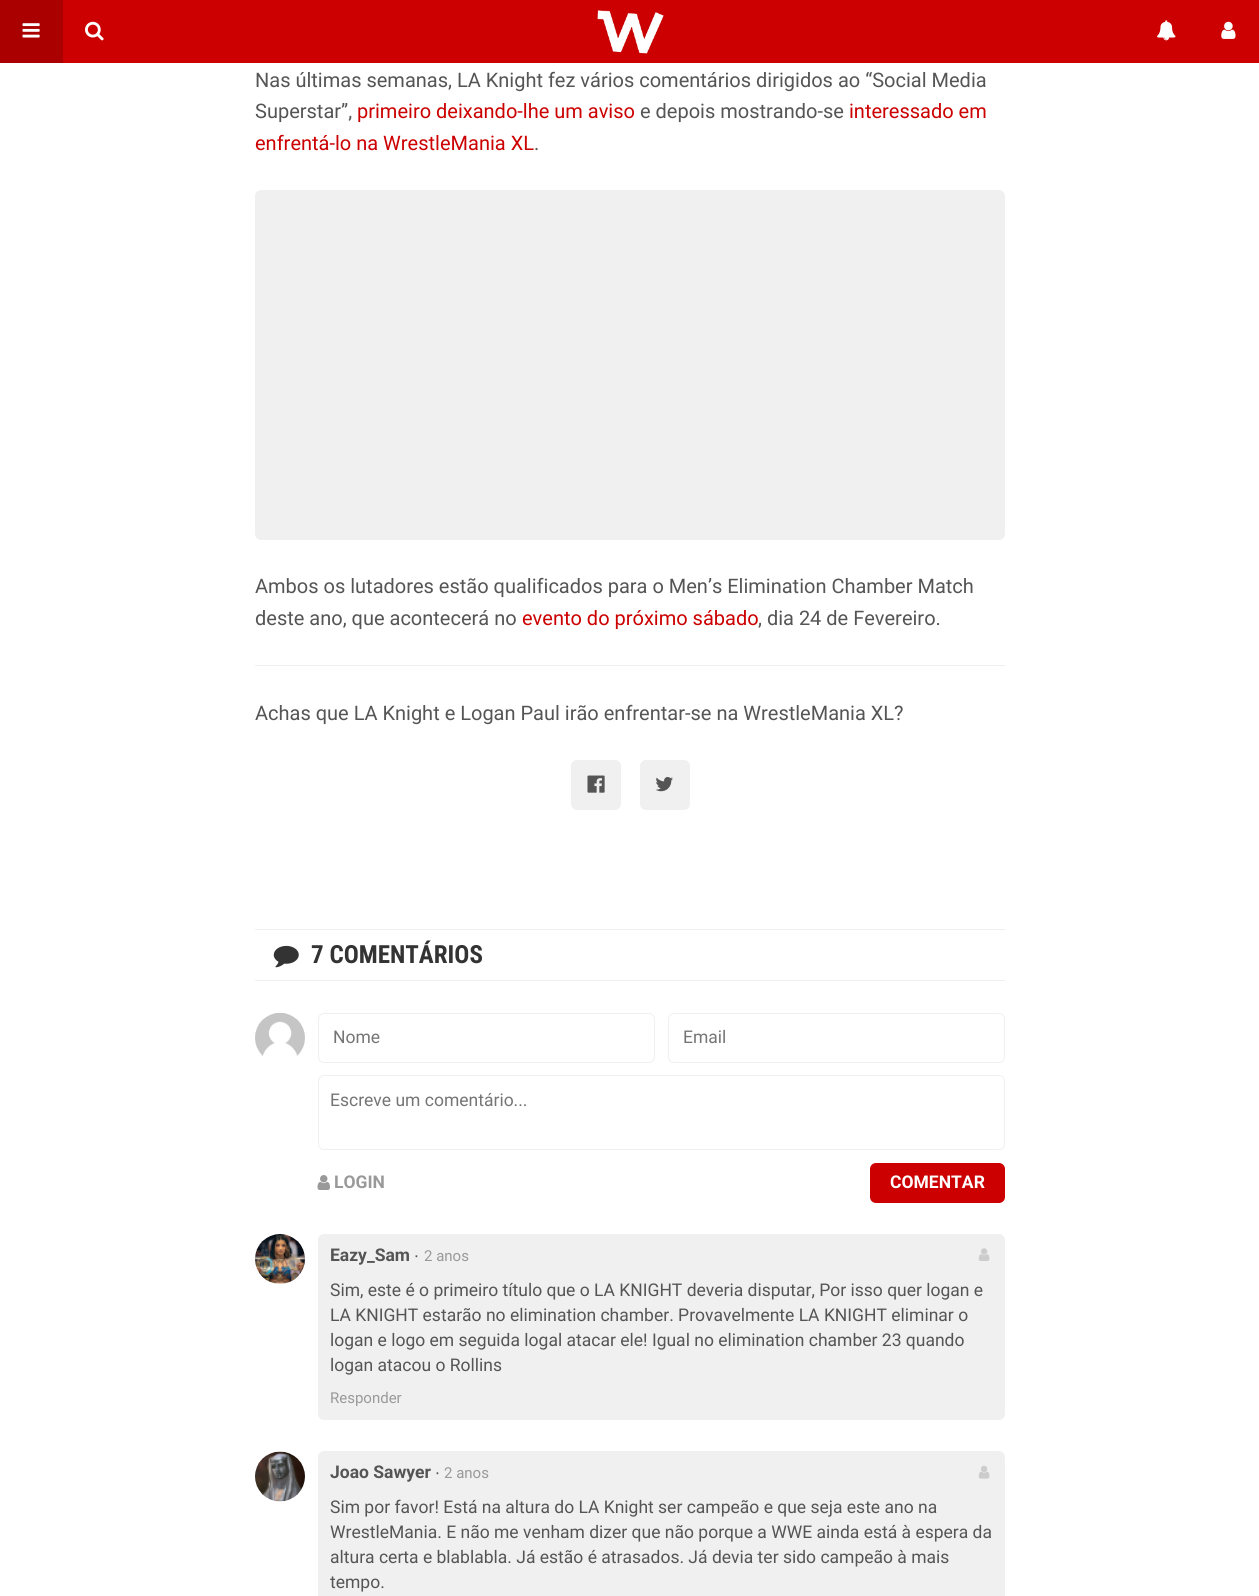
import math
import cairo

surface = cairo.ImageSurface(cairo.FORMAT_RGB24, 1259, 1596)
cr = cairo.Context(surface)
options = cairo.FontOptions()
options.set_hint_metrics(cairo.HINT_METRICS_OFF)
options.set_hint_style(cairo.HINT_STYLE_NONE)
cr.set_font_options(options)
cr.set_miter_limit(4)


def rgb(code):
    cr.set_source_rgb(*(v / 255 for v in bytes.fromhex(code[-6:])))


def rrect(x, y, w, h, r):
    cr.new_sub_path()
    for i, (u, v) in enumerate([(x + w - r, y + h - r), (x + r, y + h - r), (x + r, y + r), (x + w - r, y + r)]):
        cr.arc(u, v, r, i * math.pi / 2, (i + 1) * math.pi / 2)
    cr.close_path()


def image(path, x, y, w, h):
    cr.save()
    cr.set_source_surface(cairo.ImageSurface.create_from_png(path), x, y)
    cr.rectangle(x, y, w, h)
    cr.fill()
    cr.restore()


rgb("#ffffff")
cr.paint()
rgb("#cc0000")
cr.rectangle(63, 0, 1196, 63)
cr.fill()
rgb("#aa0000")
cr.rectangle(0, 0, 63, 63)
cr.fill()
image("img/1.png", 22, 23, 18, 15)
image("img/2.png", 85, 21, 19, 20)
image("img/3.png", 597, 9, 67, 45)
image("img/4.png", 1157, 20, 19, 21)
image("img/5.png", 1221, 21, 15, 18)
rgb("#f0f0f0")
rrect(255, 190, 750, 350, 6)
cr.fill()
cr.rectangle(255, 665, 750, 1)
cr.fill()
rrect(571, 760, 50, 50, 6)
cr.fill()
image("img/6.png", 587, 775, 18, 18)
rrect(640, 760, 50, 50, 6)
cr.fill()
image("img/7.png", 655, 777, 18, 15)
cr.rectangle(255, 929, 750, 1)
cr.fill()
cr.rectangle(255, 980, 750, 1)
cr.fill()
image("img/8.png", 273, 945, 26, 23)
image("img/9.png", 255, 1013, 50, 43)
rrect(318.5, 1013.5, 336, 49, 5.5)
cr.set_line_width(1)
cr.stroke()
rrect(668.5, 1013.5, 336, 49, 5.5)
cr.stroke()
rrect(318.5, 1075.5, 686, 74, 5.5)
cr.stroke()
image("img/10.png", 317, 1175, 13, 15)
rgb("#cc0000")
rrect(870, 1163, 135, 40, 6)
cr.fill()
image("img/11.png", 255, 1234, 50, 50)
rgb("#f0f0f0")
rrect(318, 1234, 687, 186, 6)
cr.fill()
image("img/12.png", 978, 1248, 12, 13)
image("img/13.png", 255, 1451, 50, 51)
rrect(318, 1451, 687, 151, 6)
cr.fill()
image("img/14.png", 978, 1465, 12, 14)
cr.select_font_face("Roboto")
cr.set_font_size(20)
rgb("#555555")
cr.move_to(255, 87)
cr.show_text("Nas últimas semanas, LA Knight fez vários comentários dirigidos ao “Social Media")
cr.move_to(255, 118)
cr.show_text("Superstar”,")
rgb("#cc0000")
cr.move_to(357, 118)
cr.show_text("primeiro deixando-lhe um aviso")
rgb("#555555")
cr.move_to(640, 118)
cr.show_text("e depois mostrando-se")
rgb("#cc0000")
cr.move_to(849, 118)
cr.show_text("interessado em")
cr.move_to(255, 150)
cr.show_text("enfrentá-lo na WrestleMania XL")
rgb("#555555")
for x, y, s in [
    (534, 150, "."),
    (255, 593, "Ambos os lutadores estão qualificados para o Men’s Elimination Chamber Match"),
    (255, 625, "deste ano, que acontecerá no"),
]:
    cr.move_to(x, y)
    cr.show_text(s)
rgb("#cc0000")
cr.move_to(522, 625)
cr.show_text("evento do próximo sábado")
rgb("#555555")
cr.move_to(758, 625)
cr.show_text(", dia 24 de Fevereiro.")
cr.move_to(255, 720)
cr.show_text("Achas que LA Knight e Logan Paul irão enfrentar-se na WrestleMania XL?")
cr.select_font_face("Roboto Condensed", cairo.FONT_SLANT_NORMAL, cairo.FONT_WEIGHT_BOLD)
cr.set_font_size(25)
rgb("#333333")
cr.move_to(311, 963)
cr.show_text("7 COMENTÁRIOS")
cr.select_font_face("Roboto")
cr.set_font_size(17.5)
rgb("#757575")
for x, y, s in [
    (333, 1043, "Nome"),
    (683, 1043, "Email"),
    (330, 1106, "Escreve um comentário..."),
]:
    cr.move_to(x, y)
    cr.show_text(s)
cr.select_font_face("Roboto", cairo.FONT_SLANT_NORMAL, cairo.FONT_WEIGHT_BOLD)
rgb("#999999")
cr.move_to(334, 1188)
cr.show_text("LOGIN")
rgb("#ffffff")
cr.move_to(890, 1188)
cr.show_text("COMENTAR")
rgb("#555555")
cr.move_to(330, 1261)
cr.show_text("Eazy_Sam")
cr.select_font_face("Liberation Sans")
cr.move_to(414, 1261)
cr.show_text("∙")
cr.select_font_face("Roboto")
cr.set_font_size(15)
rgb("#999999")
cr.move_to(424, 1261)
cr.show_text("2 anos")
cr.set_font_size(17.5)
rgb("#555555")
for x, y, s in [
    (330, 1296, "Sim, este é o primeiro título que o LA KNIGHT deveria disputar, Por isso quer logan e"),
    (330, 1321, "LA KNIGHT estarão no elimination chamber. Provavelmente LA KNIGHT eliminar o"),
    (330, 1346, "logan e logo em seguida logal atacar ele! Igual no elimination chamber 23 quando"),
    (330, 1371, "logan atacou o Rollins"),
]:
    cr.move_to(x, y)
    cr.show_text(s)
cr.set_font_size(15)
rgb("#999999")
cr.move_to(330, 1403)
cr.show_text("Responder")
cr.select_font_face("Roboto", cairo.FONT_SLANT_NORMAL, cairo.FONT_WEIGHT_BOLD)
cr.set_font_size(17.5)
rgb("#555555")
cr.move_to(330, 1478)
cr.show_text("Joao Sawyer")
cr.select_font_face("Liberation Sans")
cr.move_to(435, 1478)
cr.show_text("∙")
cr.select_font_face("Roboto")
cr.set_font_size(15)
rgb("#999999")
cr.move_to(444, 1478)
cr.show_text("2 anos")
cr.set_font_size(17.5)
rgb("#555555")
for x, y, s in [
    (330, 1513, "Sim por favor! Está na altura do LA Knight ser campeão e que seja este ano na"),
    (330, 1538, "WrestleMania. E não me venham dizer que não porque a WWE ainda está à espera da"),
    (330, 1563, "altura certa e blablabla. Já estão é atrasados. Já devia ter sido campeão à mais"),
    (330, 1588, "tempo."),
]:
    cr.move_to(x, y)
    cr.show_text(s)
surface.write_to_png("page.png")
